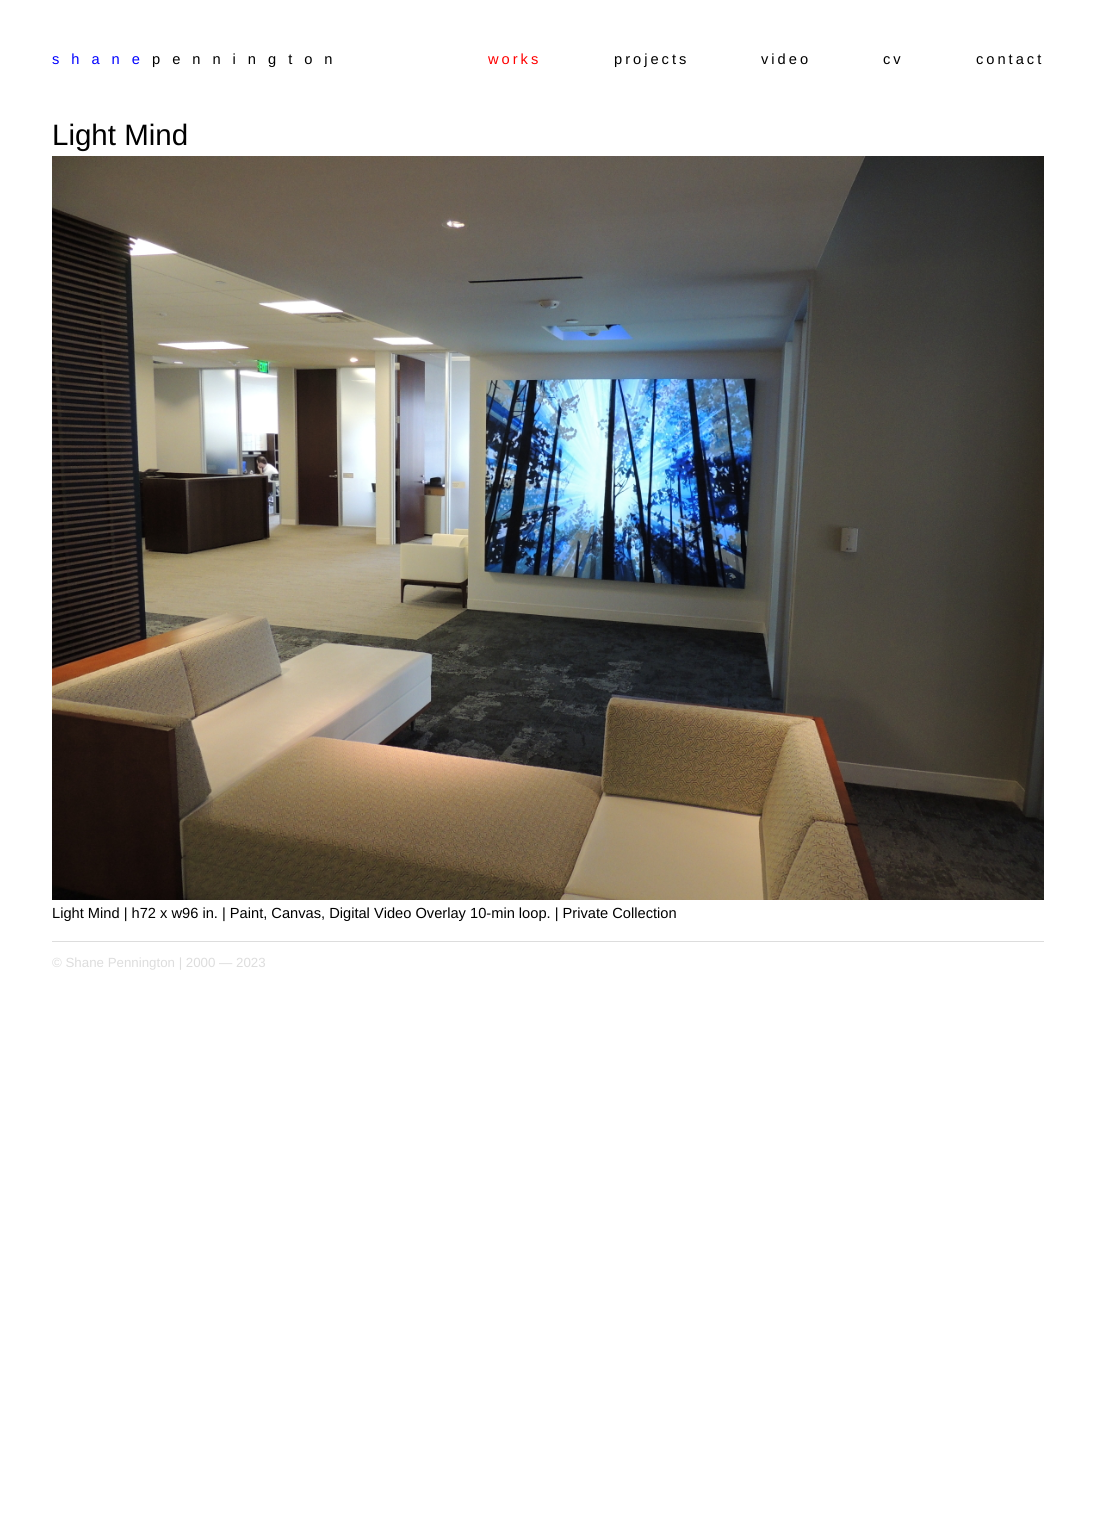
import math
import cairo

surface = cairo.ImageSurface(cairo.FORMAT_RGB24, 1096, 1513)
cr = cairo.Context(surface)
options = cairo.FontOptions()
options.set_hint_metrics(cairo.HINT_METRICS_OFF)
options.set_hint_style(cairo.HINT_STYLE_NONE)
cr.set_font_options(options)
cr.set_miter_limit(4)


def rgb(code):
    cr.set_source_rgb(*(v / 255 for v in bytes.fromhex(code[-6:])))


def tracked(x, y, s, letter, word):
    cr.move_to(x, y)
    for ch in s:
        cr.show_text(ch)
        cr.rel_move_to(letter + word * (ch == ' '), 0)


def image(path, x, y, w, h):
    cr.save()
    cr.set_source_surface(cairo.ImageSurface.create_from_png(path), x, y)
    cr.rectangle(x, y, w, h)
    cr.fill()
    cr.restore()


rgb("#ffffff")
cr.paint()
image("img/1.png", 52, 156, 992, 744)
rgb("#dddddd")
cr.rectangle(52, 941, 992, 1)
cr.fill()
cr.select_font_face("Liberation Sans")
cr.set_font_size(14.65)
rgb("#0000ff")
tracked(52, 64, "shane", 12, 0)
rgb("#000000")
tracked(152, 64, "pennington", 12, 0)
rgb("#ff0000")
tracked(488, 64, "works", 3, 0)
rgb("#000000")
for x, y, s in [
    (614, 64, "projects"),
    (761, 64, "video"),
    (883, 64, "cv"),
    (976, 64, "contact"),
]:
    tracked(x, y, s, 3, 0)
cr.set_font_size(29.5)
cr.move_to(52, 145)
cr.show_text("Light Mind")
cr.set_font_size(14.65)
cr.move_to(52, 918)
cr.show_text("Light Mind | h72 x w96 in. | Paint, Canvas, Digital Video Overlay 10-min loop. | Private Collection")
cr.set_font_size(13.3)
rgb("#dddddd")
cr.move_to(52, 967)
cr.show_text("© Shane Pennington | 2000 — 2023")
surface.write_to_png("page.png")
